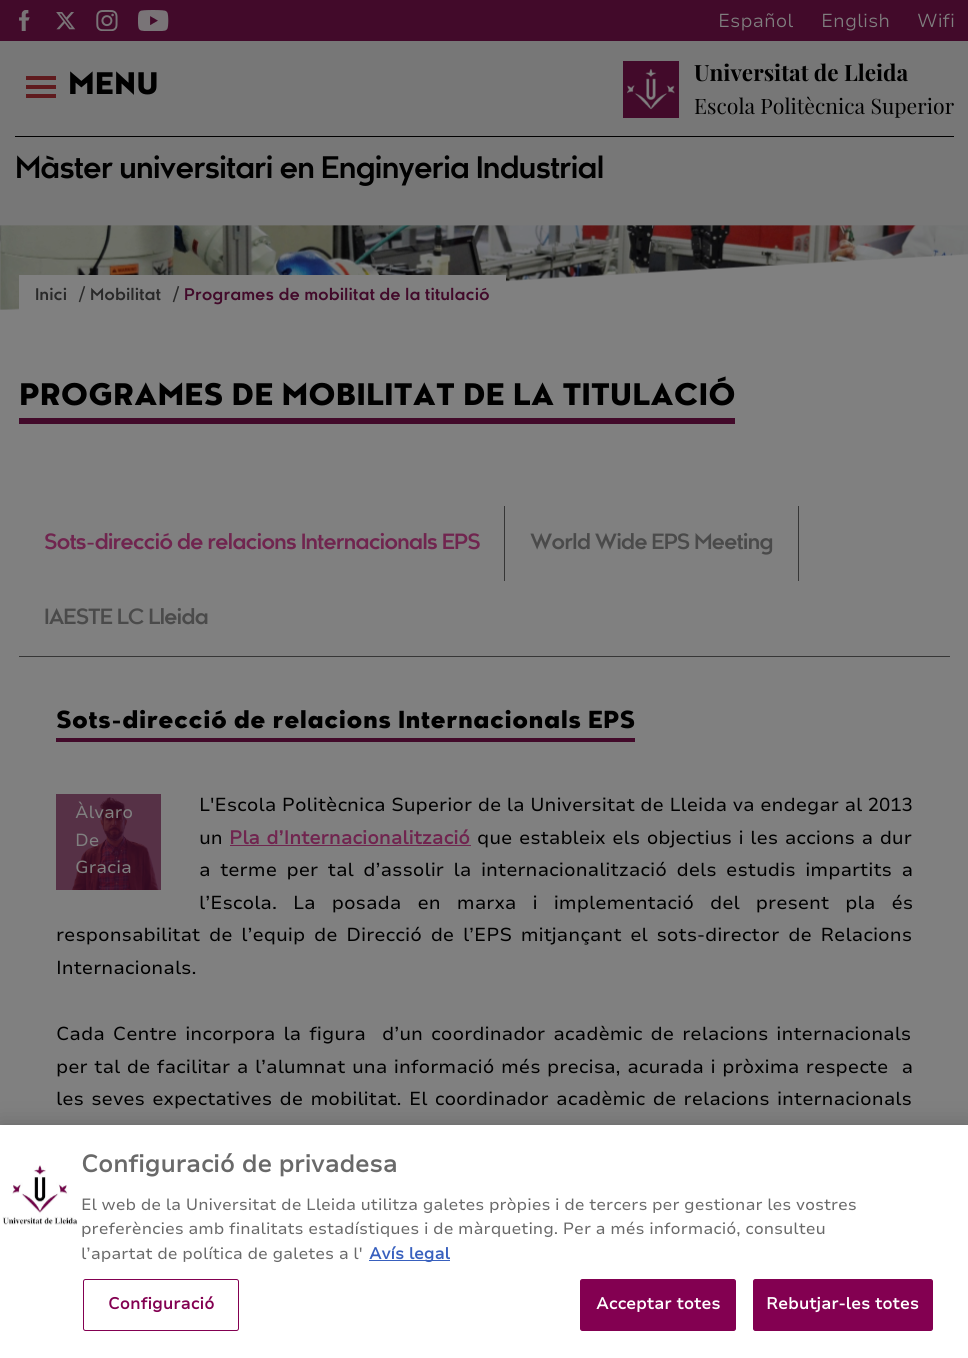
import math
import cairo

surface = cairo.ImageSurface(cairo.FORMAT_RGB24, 968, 1358)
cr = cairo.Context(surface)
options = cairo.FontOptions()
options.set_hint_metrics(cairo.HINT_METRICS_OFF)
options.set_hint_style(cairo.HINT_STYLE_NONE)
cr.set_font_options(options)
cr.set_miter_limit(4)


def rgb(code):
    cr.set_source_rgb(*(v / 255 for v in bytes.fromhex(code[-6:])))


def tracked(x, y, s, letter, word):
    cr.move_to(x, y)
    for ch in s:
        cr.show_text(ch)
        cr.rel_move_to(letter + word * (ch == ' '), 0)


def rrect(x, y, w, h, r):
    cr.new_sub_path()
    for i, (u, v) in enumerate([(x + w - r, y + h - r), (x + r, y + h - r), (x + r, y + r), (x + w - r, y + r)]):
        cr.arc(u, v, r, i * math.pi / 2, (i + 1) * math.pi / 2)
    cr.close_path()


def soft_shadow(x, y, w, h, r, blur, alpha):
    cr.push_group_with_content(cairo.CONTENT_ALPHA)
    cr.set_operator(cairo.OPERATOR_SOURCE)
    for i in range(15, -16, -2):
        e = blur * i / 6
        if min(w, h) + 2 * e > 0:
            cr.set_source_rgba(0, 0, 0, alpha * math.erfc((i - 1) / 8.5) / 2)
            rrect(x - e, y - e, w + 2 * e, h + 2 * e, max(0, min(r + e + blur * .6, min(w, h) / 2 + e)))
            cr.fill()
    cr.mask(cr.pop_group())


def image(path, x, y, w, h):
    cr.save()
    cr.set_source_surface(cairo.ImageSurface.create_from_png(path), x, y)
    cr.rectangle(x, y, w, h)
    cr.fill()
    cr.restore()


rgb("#808080")
cr.paint()
rgb("#563146")
cr.rectangle(56, 794, 105, 96)
cr.fill()
rgb("#420a2a")
cr.rectangle(0, 0, 968, 41)
cr.fill()
image("img/1.png", 19, 10, 11, 21)
image("img/2.png", 56, 12, 20, 18)
image("img/3.png", 96, 10, 22, 21)
image("img/4.png", 138, 10, 31, 21)
rgb("#777777")
cr.rectangle(0, 41, 968, 184)
cr.fill()
rgb("#420a2a")
cr.rectangle(623, 61, 56, 57)
cr.fill()
image("img/5.png", 627, 69, 48, 41)
for x, y, w, h, color in [
    (15, 136, 939, 1, "#000000"),
    (26, 76, 30, 4, "#5f1b1e"),
    (26, 85, 30, 4, "#5f1b1e"),
    (26, 94, 30, 4, "#5f1b1e"),
]:
    rgb(color)
    cr.rectangle(x, y, w, h)
    cr.fill()
rgb("#777777")
cr.new_path()
cr.move_to(0, 225)
cr.line_to(0, 310)
cr.line_to(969, 254)
cr.line_to(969, 225)
cr.close_path()
cr.fill()
image("img/6.png", 0, 225, 968, 85)
for x, y, w, h, color in [
    (19, 275, 487, 35, "#808080"),
    (19, 418, 716, 6, "#420a2a"),
    (504, 506, 1, 75, "#363636"),
    (798, 506, 1, 75, "#363636"),
    (19, 656, 931, 1, "#363636"),
    (56, 738, 579, 4, "#420a2a"),
    (230, 845, 241, 1, "#70254f"),
]:
    rgb(color)
    cr.rectangle(x, y, w, h)
    cr.fill()
image("img/7.png", 71, 797, 88, 93)
rgb("#000000")
soft_shadow(0, 1125, 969, 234, 0, 11, 0.2)
rgb("#ffffff")
cr.rectangle(0, 1125, 968, 233)
cr.fill()
image("img/8.png", 2, 1165, 76, 60)
rgb("#3860be")
cr.rectangle(369, 1260, 81, 1)
cr.fill()
rrect(83.5, 1279.5, 155, 51, 2)
rgb("#830051")
cr.set_line_width(1)
cr.stroke()
rrect(580.5, 1279.5, 155, 51, 2)
cr.fill_preserve()
cr.stroke()
rrect(753.5, 1279.5, 179, 51, 2)
cr.fill_preserve()
cr.stroke()
cr.select_font_face("Nunito Sans Light")
cr.set_font_size(18.75)
rgb("#808080")
for x, y, s in [
    (718, 27, "Español"),
    (821, 27, "English"),
    (917, 27, "Wifi"),
]:
    cr.move_to(x, y)
    cr.show_text(s)
cr.select_font_face("Playfair Display", cairo.FONT_SLANT_NORMAL, cairo.FONT_WEIGHT_BOLD)
cr.set_font_size(22.5)
rgb("#000000")
cr.move_to(694, 81)
cr.show_text("Universitat de Lleida")
cr.select_font_face("Playfair Display")
cr.set_font_size(21.25)
cr.move_to(694, 114)
cr.show_text("Escola Politècnica Superior")
cr.select_font_face("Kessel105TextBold", cairo.FONT_SLANT_NORMAL, cairo.FONT_WEIGHT_BOLD)
cr.set_font_size(30)
tracked(15, 178, "Màster universitari en Enginyeria Industrial", -1.2, 0)
cr.select_font_face("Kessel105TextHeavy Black")
cr.move_to(68, 94)
cr.show_text("MENU")
cr.select_font_face("Kessel105TextBold", cairo.FONT_SLANT_NORMAL, cairo.FONT_WEIGHT_BOLD)
cr.set_font_size(16.25)
rgb("#292929")
cr.move_to(35, 300)
cr.show_text("Inici")
cr.select_font_face("Nunito Sans")
cr.set_font_size(20)
cr.move_to(79, 301)
cr.show_text("/")
cr.select_font_face("Kessel105TextBold", cairo.FONT_SLANT_NORMAL, cairo.FONT_WEIGHT_BOLD)
cr.set_font_size(16.25)
cr.move_to(90, 300)
cr.show_text("Mobilitat")
cr.select_font_face("Nunito Sans")
cr.set_font_size(20)
cr.move_to(173, 301)
cr.show_text("/")
cr.select_font_face("Kessel105TextBold", cairo.FONT_SLANT_NORMAL, cairo.FONT_WEIGHT_BOLD)
cr.set_font_size(16.25)
rgb("#420a2a")
cr.move_to(184, 300)
cr.show_text("Programes de mobilitat de la titulació")
cr.select_font_face("Kessel105TextHeavy Black")
cr.set_font_size(30)
rgb("#000000")
cr.move_to(19, 405)
cr.show_text("PROGRAMES DE MOBILITAT DE LA TITULACIÓ")
cr.select_font_face("Kessel105TextBold", cairo.FONT_SLANT_NORMAL, cairo.FONT_WEIGHT_BOLD)
cr.set_font_size(21.25)
rgb("#70254f")
tracked(44, 549, "Sots-direcció de relacions Internacionals EPS", -1.05, 0)
rgb("#4a4a4a")
tracked(530, 549, "World Wide EPS Meeting", -1.05, 0)
tracked(44, 624, "IAESTE LC Lleida", -1.05, 0)
cr.select_font_face("Kessel105TextHeavy Black")
cr.set_font_size(23.75)
rgb("#000000")
cr.move_to(56, 728)
cr.show_text("Sots-direcció de relacions Internacionals EPS")
cr.select_font_face("Nunito Sans")
cr.set_font_size(18.75)
tracked(199, 811, "L'Escola Politècnica Superior de la Universitat de Lleida va endegar al 2013", 0, 0.25)
cr.move_to(199, 844)
cr.show_text("un")
cr.select_font_face("Nunito Sans", cairo.FONT_SLANT_NORMAL, cairo.FONT_WEIGHT_BOLD)
rgb("#70254f")
tracked(229, 844, "Pla d’Internacionalització", 0, 1)
cr.select_font_face("Nunito Sans")
rgb("#000000")
tracked(477, 844, "que estableix els objectius i les accions a dur", 0, 1.25)
tracked(199, 876, "a terme per tal d’assolir la internacionalització dels estudis impartits a", 0, 4.25)
tracked(199, 909, "l’Escola. La posada en marxa i implementació del present pla és", 0, 10.75)
tracked(56, 941, "responsabilitat de l’equip de Direcció de l’EPS mitjançant el sots-director de Relacions", 0, 3.4)
cr.move_to(56, 974)
cr.show_text("Internacionals.")
tracked(56, 1040, "Cada Centre incorpora la figura  d’un coordinador acadèmic de relacions internacionals", 0, 2.75)
tracked(56, 1073, "per tal de facilitar a l’alumnat una informació més precisa, acurada i pròxima respecte  a", 0, 1.25)
tracked(56, 1105, "les seves expectatives de mobilitat. El coordinador acadèmic de relacions internacionals", 0, 2)
cr.set_font_size(17.5)
rgb("#808080")
for x, y, s in [
    (75, 818, "Àlvaro"),
    (75, 846, "De"),
    (75, 873, "Gracia"),
]:
    cr.move_to(x, y)
    cr.show_text(s)
cr.select_font_face("Nunito Sans", cairo.FONT_SLANT_NORMAL, cairo.FONT_WEIGHT_BOLD)
cr.set_font_size(24)
rgb("#696969")
cr.move_to(81, 1172)
cr.show_text("Configuració de privadesa")
cr.select_font_face("Nunito Sans")
cr.set_font_size(16.25)
for x, y, s in [
    (81, 1210, "El web de la Universitat de Lleida utilitza galetes pròpies i de tercers per gestionar les vostres"),
    (81, 1234, "preferències amb finalitats estadístiques i de màrqueting. Per a més informació, consulteu"),
    (81, 1259, "l’apartat de política de galetes a l'"),
]:
    cr.move_to(x, y)
    cr.show_text(s)
cr.select_font_face("Nunito Sans", cairo.FONT_SLANT_NORMAL, cairo.FONT_WEIGHT_BOLD)
rgb("#3860be")
cr.move_to(369, 1259)
cr.show_text("Avís legal")
rgb("#830051")
tracked(108, 1309, "Configuració", 0.2, 0)
rgb("#ffffff")
tracked(596, 1309, "Acceptar totes", 0.2, 0)
tracked(766, 1309, "Rebutjar-les totes", 0.2, 0)
surface.write_to_png("page.png")
